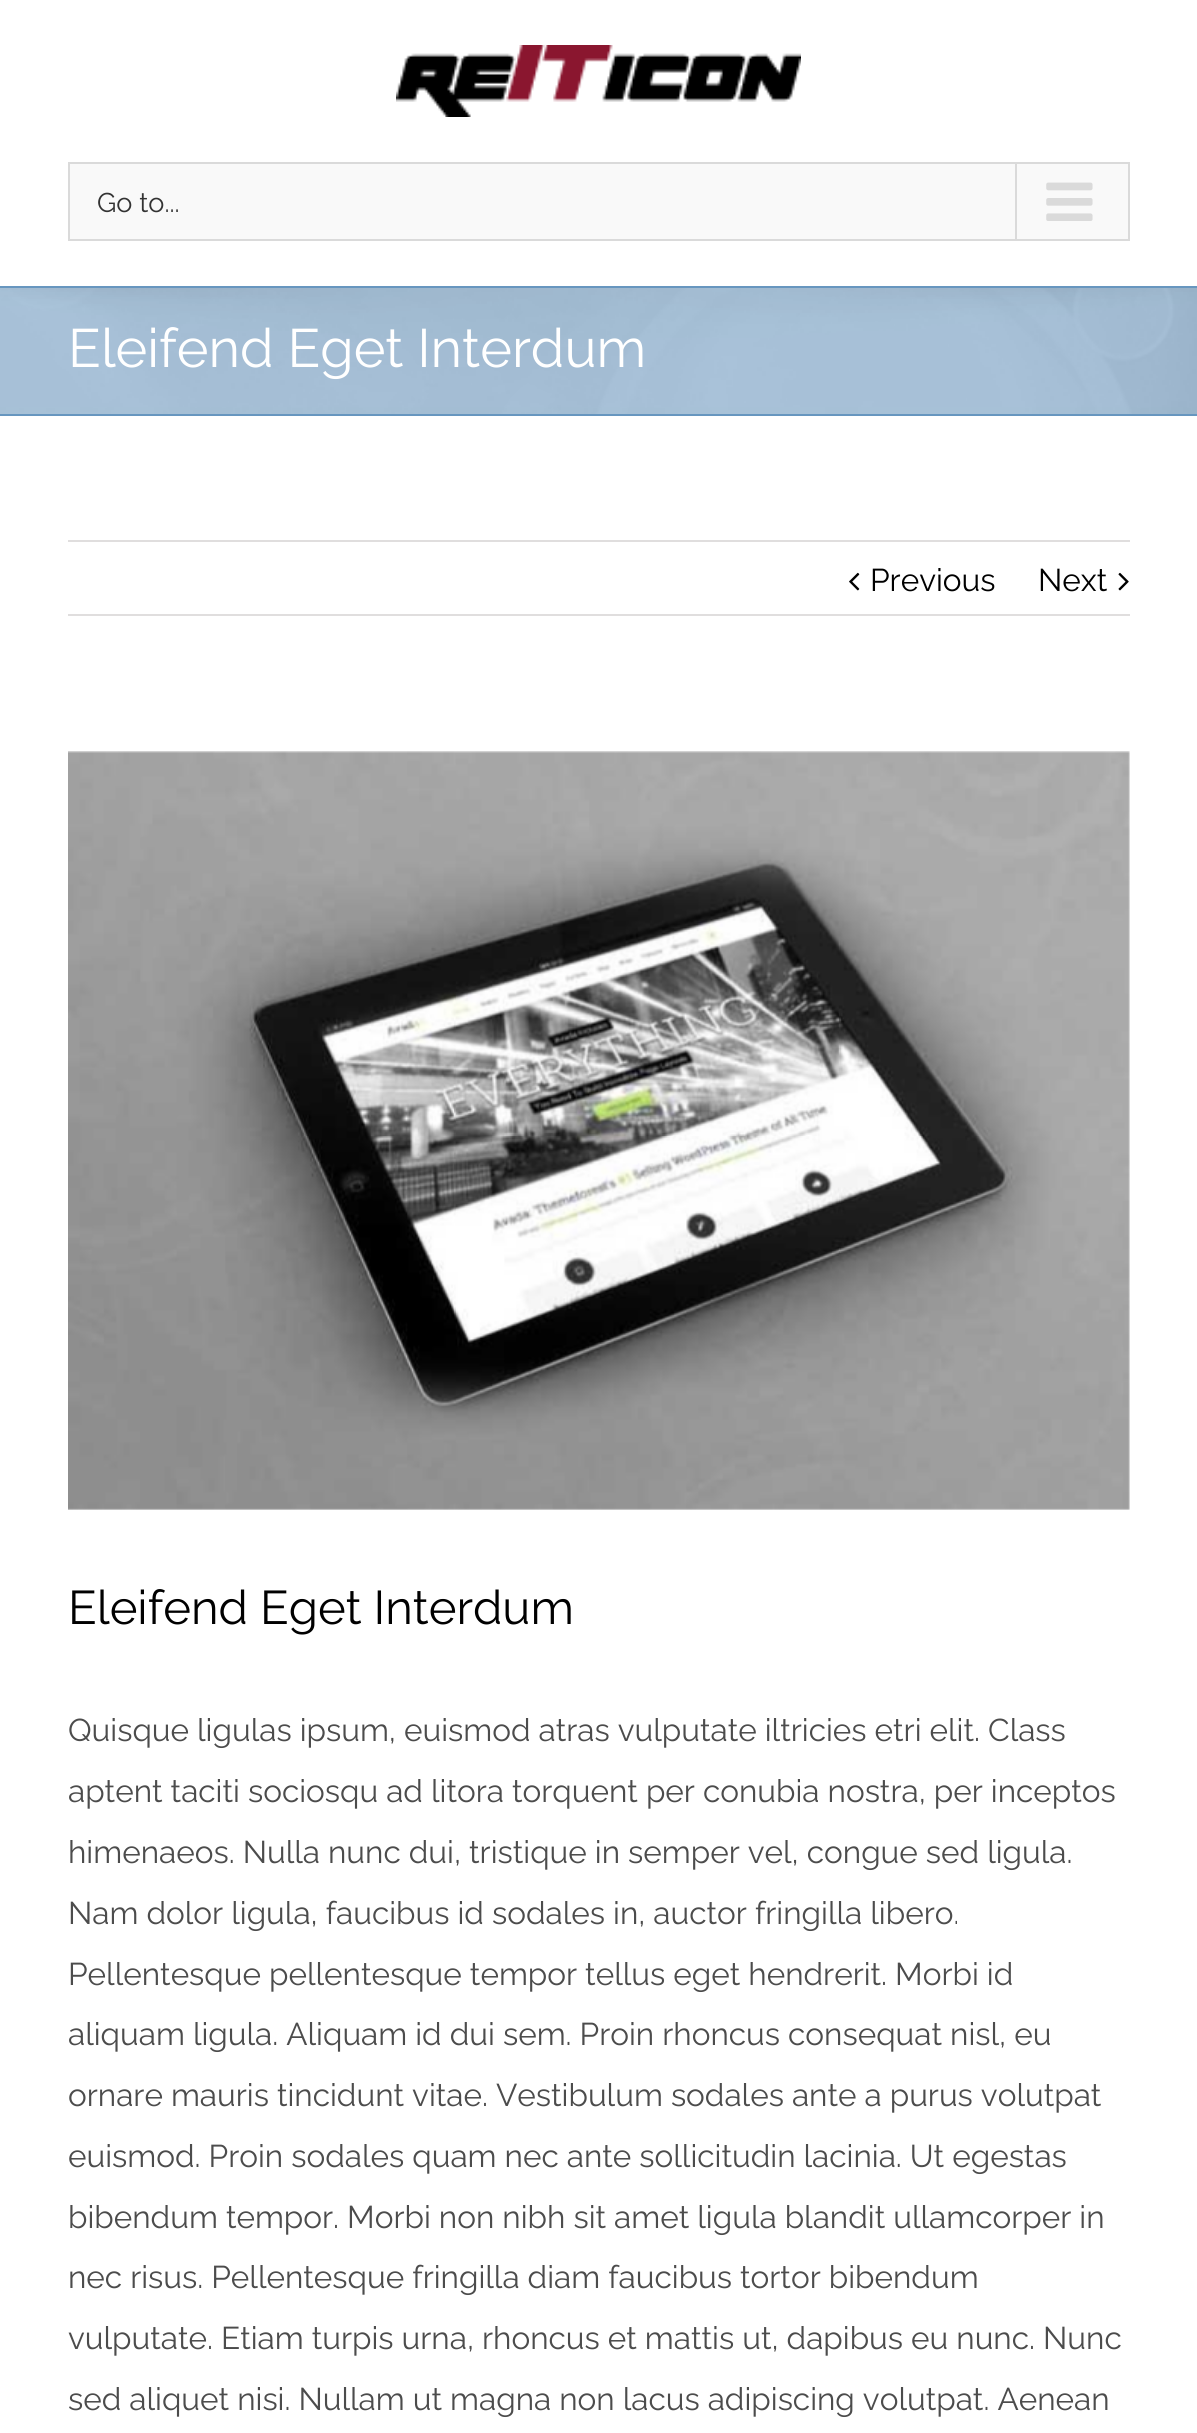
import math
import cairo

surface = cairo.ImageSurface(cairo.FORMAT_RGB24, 1197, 2433)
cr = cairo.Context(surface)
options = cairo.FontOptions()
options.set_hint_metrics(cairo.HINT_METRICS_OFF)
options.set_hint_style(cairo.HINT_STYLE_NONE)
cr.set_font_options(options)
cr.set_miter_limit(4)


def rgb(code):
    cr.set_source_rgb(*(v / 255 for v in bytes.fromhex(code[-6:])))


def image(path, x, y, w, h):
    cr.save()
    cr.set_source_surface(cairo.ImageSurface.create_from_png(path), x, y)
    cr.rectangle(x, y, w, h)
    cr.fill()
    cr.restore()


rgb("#6796bf")
cr.paint()
rgb("#ffffff")
cr.rectangle(0, 0, 1197, 286)
cr.fill()
image("img/1.png", 396, 45, 405, 72)
rgb("#f9f9f9")
cr.rectangle(69, 163, 1060, 77)
cr.fill_preserve()
rgb("#dadada")
cr.stroke()
cr.rectangle(1015, 164, 2, 75)
cr.fill()
image("img/2.png", 1046, 182, 47, 39)
image("img/3.png", 0, 288, 1197, 126)
for x, y, w, h, color in [
    (0, 416, 1197, 2017, "#ffffff"),
    (68, 540, 1062, 2, "#e0dede"),
    (68, 614, 1062, 2, "#e0dede"),
]:
    rgb(color)
    cr.rectangle(x, y, w, h)
    cr.fill()
image("img/4.png", 849, 572, 11, 19)
image("img/5.png", 1118, 572, 11, 19)
image("img/6.png", 68, 751, 1062, 759)
cr.select_font_face("Raleway Thin")
cr.set_font_size(27)
rgb("#333333")
cr.move_to(97, 212)
cr.show_text("Go to...")
cr.set_font_size(54)
rgb("#ffffff")
cr.move_to(68, 367)
cr.show_text("Eleifend Eget Interdum")
cr.set_font_size(31.5)
rgb("#000000")
cr.move_to(870, 591)
cr.show_text("Previous")
cr.move_to(1038, 591)
cr.show_text("Next")
cr.set_font_size(47.25)
cr.move_to(68, 1624)
cr.show_text("Eleifend Eget Interdum")
cr.set_font_size(31.5)
rgb("#4c4c4c")
for x, y, s in [
    (68, 1741, "Quisque ligulas ipsum, euismod atras vulputate iltricies etri elit. Class"),
    (68, 1802, "aptent taciti sociosqu ad litora torquent per conubia nostra, per inceptos"),
    (68, 1863, "himenaeos. Nulla nunc dui, tristique in semper vel, congue sed ligula."),
    (68, 1924, "Nam dolor ligula, faucibus id sodales in, auctor fringilla libero."),
    (68, 1985, "Pellentesque pellentesque tempor tellus eget hendrerit. Morbi id"),
    (68, 2045, "aliquam ligula. Aliquam id dui sem. Proin rhoncus consequat nisl, eu"),
    (68, 2106, "ornare mauris tincidunt vitae. Vestibulum sodales ante a purus volutpat"),
    (68, 2167, "euismod. Proin sodales quam nec ante sollicitudin lacinia. Ut egestas"),
    (68, 2228, "bibendum tempor. Morbi non nibh sit amet ligula blandit ullamcorper in"),
    (68, 2288, "nec risus. Pellentesque fringilla diam faucibus tortor bibendum"),
    (68, 2349, "vulputate. Etiam turpis urna, rhoncus et mattis ut, dapibus eu nunc. Nunc"),
    (68, 2410, "sed aliquet nisi. Nullam ut magna non lacus adipiscing volutpat. Aenean"),
]:
    cr.move_to(x, y)
    cr.show_text(s)
surface.write_to_png("page.png")
